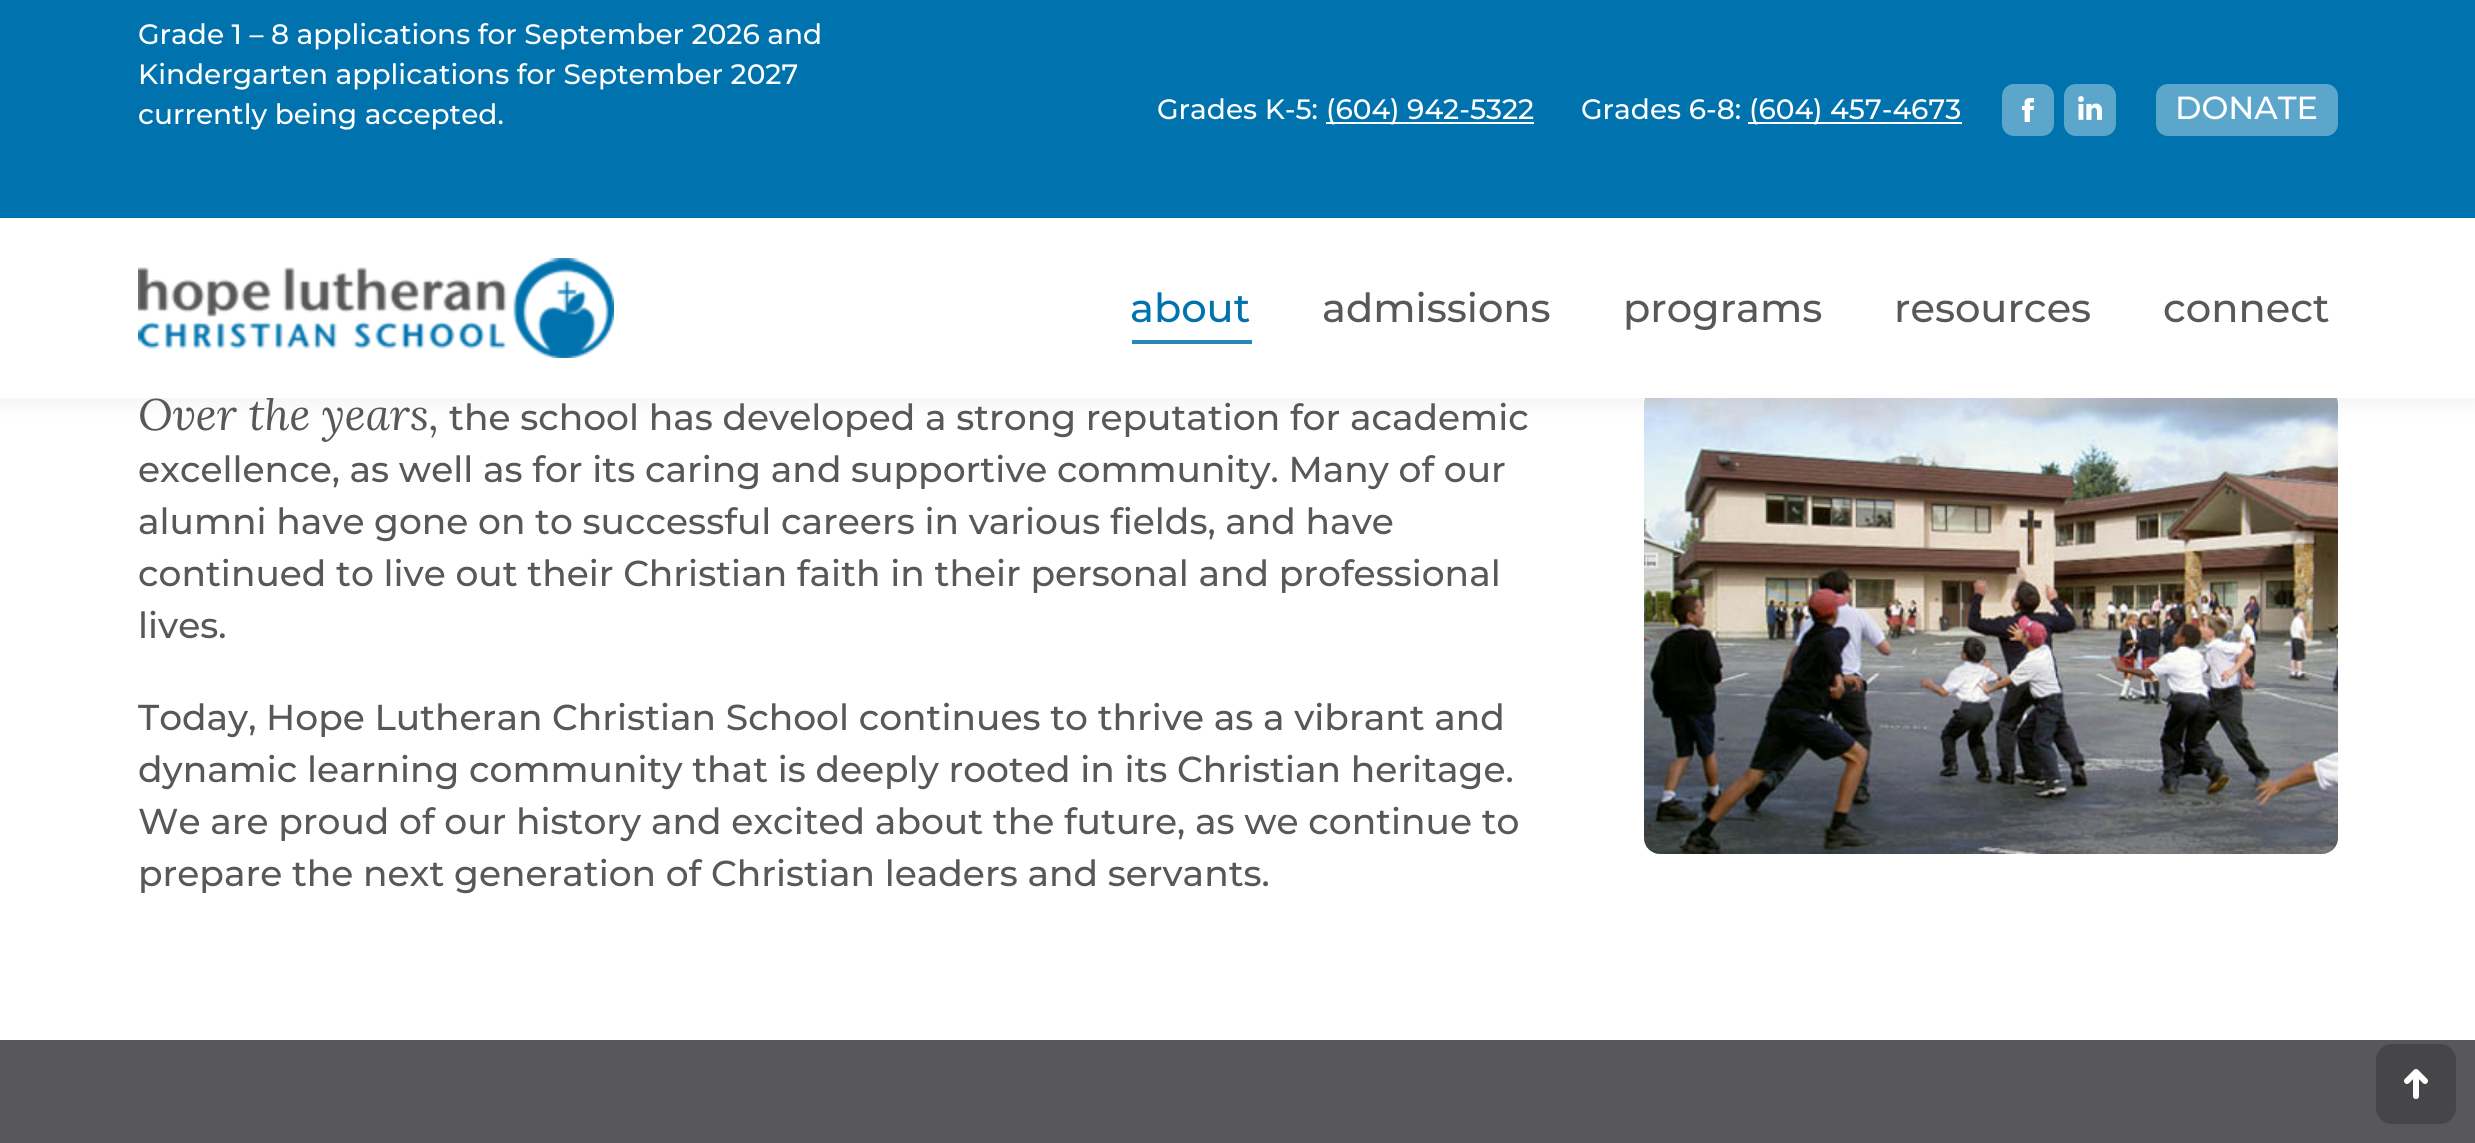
import math
import cairo

surface = cairo.ImageSurface(cairo.FORMAT_RGB24, 2475, 1143)
cr = cairo.Context(surface)
options = cairo.FontOptions()
options.set_hint_metrics(cairo.HINT_METRICS_OFF)
options.set_hint_style(cairo.HINT_STYLE_NONE)
cr.set_font_options(options)
cr.set_miter_limit(4)


def rgb(code):
    cr.set_source_rgb(*(v / 255 for v in bytes.fromhex(code[-6:])))


def rrect(x, y, w, h, r):
    cr.new_sub_path()
    for i, (u, v) in enumerate([(x + w - r, y + h - r), (x + r, y + h - r), (x + r, y + r), (x + w - r, y + r)]):
        cr.arc(u, v, r, i * math.pi / 2, (i + 1) * math.pi / 2)
    cr.close_path()


def soft_shadow(x, y, w, h, r, blur, alpha):
    cr.push_group_with_content(cairo.CONTENT_ALPHA)
    cr.set_operator(cairo.OPERATOR_SOURCE)
    for i in range(15, -16, -2):
        e = blur * i / 6
        if min(w, h) + 2 * e > 0:
            cr.set_source_rgba(0, 0, 0, alpha * math.erfc((i - 1) / 8.5) / 2)
            rrect(x - e, y - e, w + 2 * e, h + 2 * e, max(0, min(r + e + blur * .6, min(w, h) / 2 + e)))
            cr.fill()
    cr.mask(cr.pop_group())


def image(path, x, y, w, h):
    cr.save()
    cr.set_source_surface(cairo.ImageSurface.create_from_png(path), x, y)
    cr.rectangle(x, y, w, h)
    cr.fill()
    cr.restore()


rgb("#ffffff")
cr.paint()
image("img/4.png", 1644, 398, 694, 456)
rgb("#000000")
soft_shadow(-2, -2, 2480, 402, 0, 15, 0.07)
for x, y, w, h, color in [
    (0, 0, 2475, 218, "#0073ae"),
    (1326, 122, 208, 2, "#ffffff"),
    (1748, 122, 214, 2, "#ffffff"),
]:
    rgb(color)
    cr.rectangle(x, y, w, h)
    cr.fill()
rgb("#5ca6cb")
rrect(2002, 84, 52, 52, 12)
cr.fill()
image("img/1.png", 2021, 98, 14, 24)
rrect(2064, 84, 52, 52, 12)
cr.fill()
image("img/2.png", 2078, 96, 24, 24)
rrect(2156, 84, 182, 52, 12)
cr.fill()
rgb("#58585a")
cr.rectangle(0, 1040, 2475, 103)
cr.fill()
rgb("#464648")
rrect(2376, 1044, 80, 80, 16)
cr.fill()
image("img/5.png", 2404, 1069, 24, 30)
cr.select_font_face("Montserrat Medium")
cr.set_font_size(28)
rgb("#ffffff")
for x, y, s in [
    (138, 44, "Grade 1 – 8 applications for September 2026 and"),
    (138, 84, "Kindergarten applications for September 2027"),
    (138, 124, "currently being accepted."),
    (1157, 119, "Grades K-5:"),
    (1326, 119, "(604) 942-5322"),
    (1581, 119, "Grades 6-8:"),
    (1749, 119, "(604) 457-4673"),
]:
    cr.move_to(x, y)
    cr.show_text(s)
cr.set_font_size(32)
cr.move_to(2175, 119)
cr.show_text("DONATE")
cr.select_font_face("Lora", cairo.FONT_SLANT_ITALIC)
cr.set_font_size(44)
rgb("#58585a")
cr.move_to(138, 430)
cr.show_text("Over the years,")
rgb("#ffffff")
cr.rectangle(0, 218, 2475, 180)
cr.fill()
cr.select_font_face("Montserrat Medium")
cr.set_font_size(40)
rgb("#58585a")
for x, y, s in [
    (2163, 322, "connect"),
    (1894, 322, "resources"),
    (1623, 322, "programs"),
    (1322, 322, "admissions"),
]:
    cr.move_to(x, y)
    cr.show_text(s)
rgb("#2688ba")
cr.rectangle(1132, 340, 120, 4)
cr.fill()
rgb("#0073ae")
cr.move_to(1130, 322)
cr.show_text("about")
image("img/3.png", 138, 258, 476, 100)
cr.set_font_size(36)
rgb("#58585a")
for x, y, s in [
    (449, 430, "the school has developed a strong reputation for academic"),
    (138, 482, "excellence, as well as for its caring and supportive community. Many of our"),
    (138, 534, "alumni have gone on to successful careers in various fields, and have"),
    (138, 586, "continued to live out their Christian faith in their personal and professional"),
    (138, 638, "lives."),
    (138, 730, "Today, Hope Lutheran Christian School continues to thrive as a vibrant and"),
    (138, 782, "dynamic learning community that is deeply rooted in its Christian heritage."),
    (138, 834, "We are proud of our history and excited about the future, as we continue to"),
    (138, 886, "prepare the next generation of Christian leaders and servants."),
]:
    cr.move_to(x, y)
    cr.show_text(s)
surface.write_to_png("page.png")
